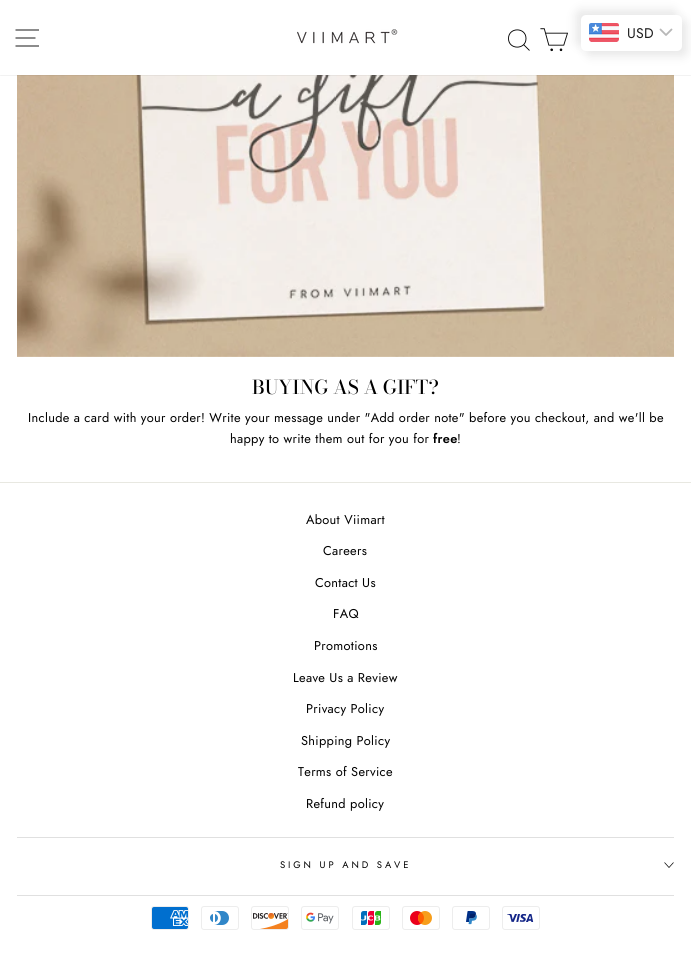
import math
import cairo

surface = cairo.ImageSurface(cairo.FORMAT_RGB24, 691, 961)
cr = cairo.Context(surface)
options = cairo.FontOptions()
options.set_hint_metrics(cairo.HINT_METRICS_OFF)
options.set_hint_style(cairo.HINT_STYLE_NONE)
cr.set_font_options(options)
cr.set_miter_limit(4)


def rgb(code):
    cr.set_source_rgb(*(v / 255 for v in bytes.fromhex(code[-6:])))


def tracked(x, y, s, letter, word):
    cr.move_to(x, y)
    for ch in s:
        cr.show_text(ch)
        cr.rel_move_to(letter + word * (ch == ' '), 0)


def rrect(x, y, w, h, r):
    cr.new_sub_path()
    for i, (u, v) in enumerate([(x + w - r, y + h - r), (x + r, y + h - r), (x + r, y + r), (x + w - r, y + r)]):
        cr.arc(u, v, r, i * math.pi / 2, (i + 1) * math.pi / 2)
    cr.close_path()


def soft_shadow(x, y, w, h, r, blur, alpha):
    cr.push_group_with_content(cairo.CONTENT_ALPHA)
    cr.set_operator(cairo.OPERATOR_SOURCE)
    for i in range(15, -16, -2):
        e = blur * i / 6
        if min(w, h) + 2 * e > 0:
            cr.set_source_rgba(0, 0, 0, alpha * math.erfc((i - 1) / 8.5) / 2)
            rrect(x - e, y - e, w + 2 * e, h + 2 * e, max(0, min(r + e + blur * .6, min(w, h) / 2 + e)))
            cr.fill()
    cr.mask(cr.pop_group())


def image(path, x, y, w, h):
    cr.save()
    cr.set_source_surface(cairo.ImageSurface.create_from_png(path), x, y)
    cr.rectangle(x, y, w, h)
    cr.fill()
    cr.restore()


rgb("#ffffff")
cr.paint()
image("img/4.png", 17, 75, 657, 282)
rgb("#000000")
soft_shadow(0, 0, 691, 75, 0, 0.5, 0.2)
rgb("#ffffff")
cr.rectangle(0, 0, 691, 75)
cr.fill()
cr.new_path()
cr.move_to(15.5, 30)
cr.line_to(39, 30)
cr.move_to(15.5, 38)
cr.line_to(35.5, 38)
cr.move_to(15.5, 46)
cr.line_to(39, 46)
rgb("#000000")
cr.set_line_width(0.9)
cr.stroke()
image("img/1.png", 297, 29, 101, 15)
cr.new_path()
cr.move_to(526, 38.5)
cr.curve_to(526, 50, 508.5, 50, 508.5, 38.5)
cr.curve_to(508.5, 27, 526, 27, 526, 38.5)
cr.close_path()
cr.move_to(529.5, 50.5)
cr.line_to(523.5, 44.5)
cr.stroke()
image("img/2.png", 540, 28, 28, 24)
rgb("#e8e8e8")
soft_shadow(576, 10, 101, 36, 5, 5, 1)
soft_shadow(586, 20, 101, 36, 5, 5, 1)
rgb("#ffffff")
rrect(581, 15, 101, 36, 5)
cr.fill()
image("img/3.png", 589, 23, 30, 19)
cr.new_path()
cr.move_to(660.5, 29.5)
cr.line_to(666, 35)
cr.line_to(671.5, 29.5)
rgb("#b7b7b7")
cr.set_line_width(1.8)
cr.set_line_cap(cairo.LINE_CAP_ROUND)
cr.set_line_join(cairo.LINE_JOIN_ROUND)
cr.stroke()
rgb("#e8e8e1")
cr.rectangle(0, 482, 691, 1)
cr.fill()
rgb("#e0e0e0")
cr.rectangle(17, 837, 657, 1)
cr.fill()
cr.new_path()
cr.move_to(664.5, 862.5)
cr.line_to(669, 867.5)
cr.line_to(673.5, 862.5)
rgb("#000000")
cr.set_line_width(0.7)
cr.set_line_cap(cairo.LINE_CAP_BUTT)
cr.set_line_join(cairo.LINE_JOIN_MITER)
cr.stroke()
rgb("#e0e0e0")
cr.rectangle(17, 895, 657, 1)
cr.fill()
image("img/5.png", 151, 906, 38, 24)
image("img/6.png", 201, 906, 38, 24)
image("img/7.png", 251, 906, 38, 24)
image("img/8.png", 301, 906, 38, 24)
image("img/9.png", 352, 906, 38, 24)
image("img/10.png", 402, 906, 38, 24)
image("img/11.png", 452, 906, 38, 24)
image("img/12.png", 502, 906, 38, 24)
cr.select_font_face("Jost")
cr.set_font_size(14)
rgb("#1e1e1e")
tracked(627, 38, "USD", 0.32, 0)
cr.select_font_face("Bodoni Moda Medium")
cr.set_font_size(19.1)
rgb("#000000")
cr.move_to(252, 394)
cr.show_text("BUYING AS A GIFT?")
cr.select_font_face("Jost")
cr.set_font_size(12.75)
tracked(28, 422, "Include a card with your order! Write your message under \"Add order note\" before you checkout, and we'll be", 0.32, 0)
tracked(230, 443, "happy to write them out for you for", 0.32, 0)
cr.select_font_face("Jost SemiBold")
tracked(433, 443, "free", 0.32, 0)
cr.select_font_face("Jost")
for x, y, s in [
    (457, 443, "!"),
    (306, 524, "About Viimart"),
    (323, 555, "Careers"),
    (315, 587, "Contact Us"),
    (333, 618, "FAQ"),
    (314, 650, "Promotions"),
    (293, 682, "Leave Us a Review"),
    (306, 713, "Privacy Policy"),
    (301, 745, "Shipping Policy"),
    (298, 776, "Terms of Service"),
    (306, 808, "Refund policy"),
]:
    tracked(x, y, s, 0.32, 0)
cr.set_font_size(9.5)
tracked(280, 868, "SIGN UP AND SAVE", 2.9, 0)
surface.write_to_png("page.png")
